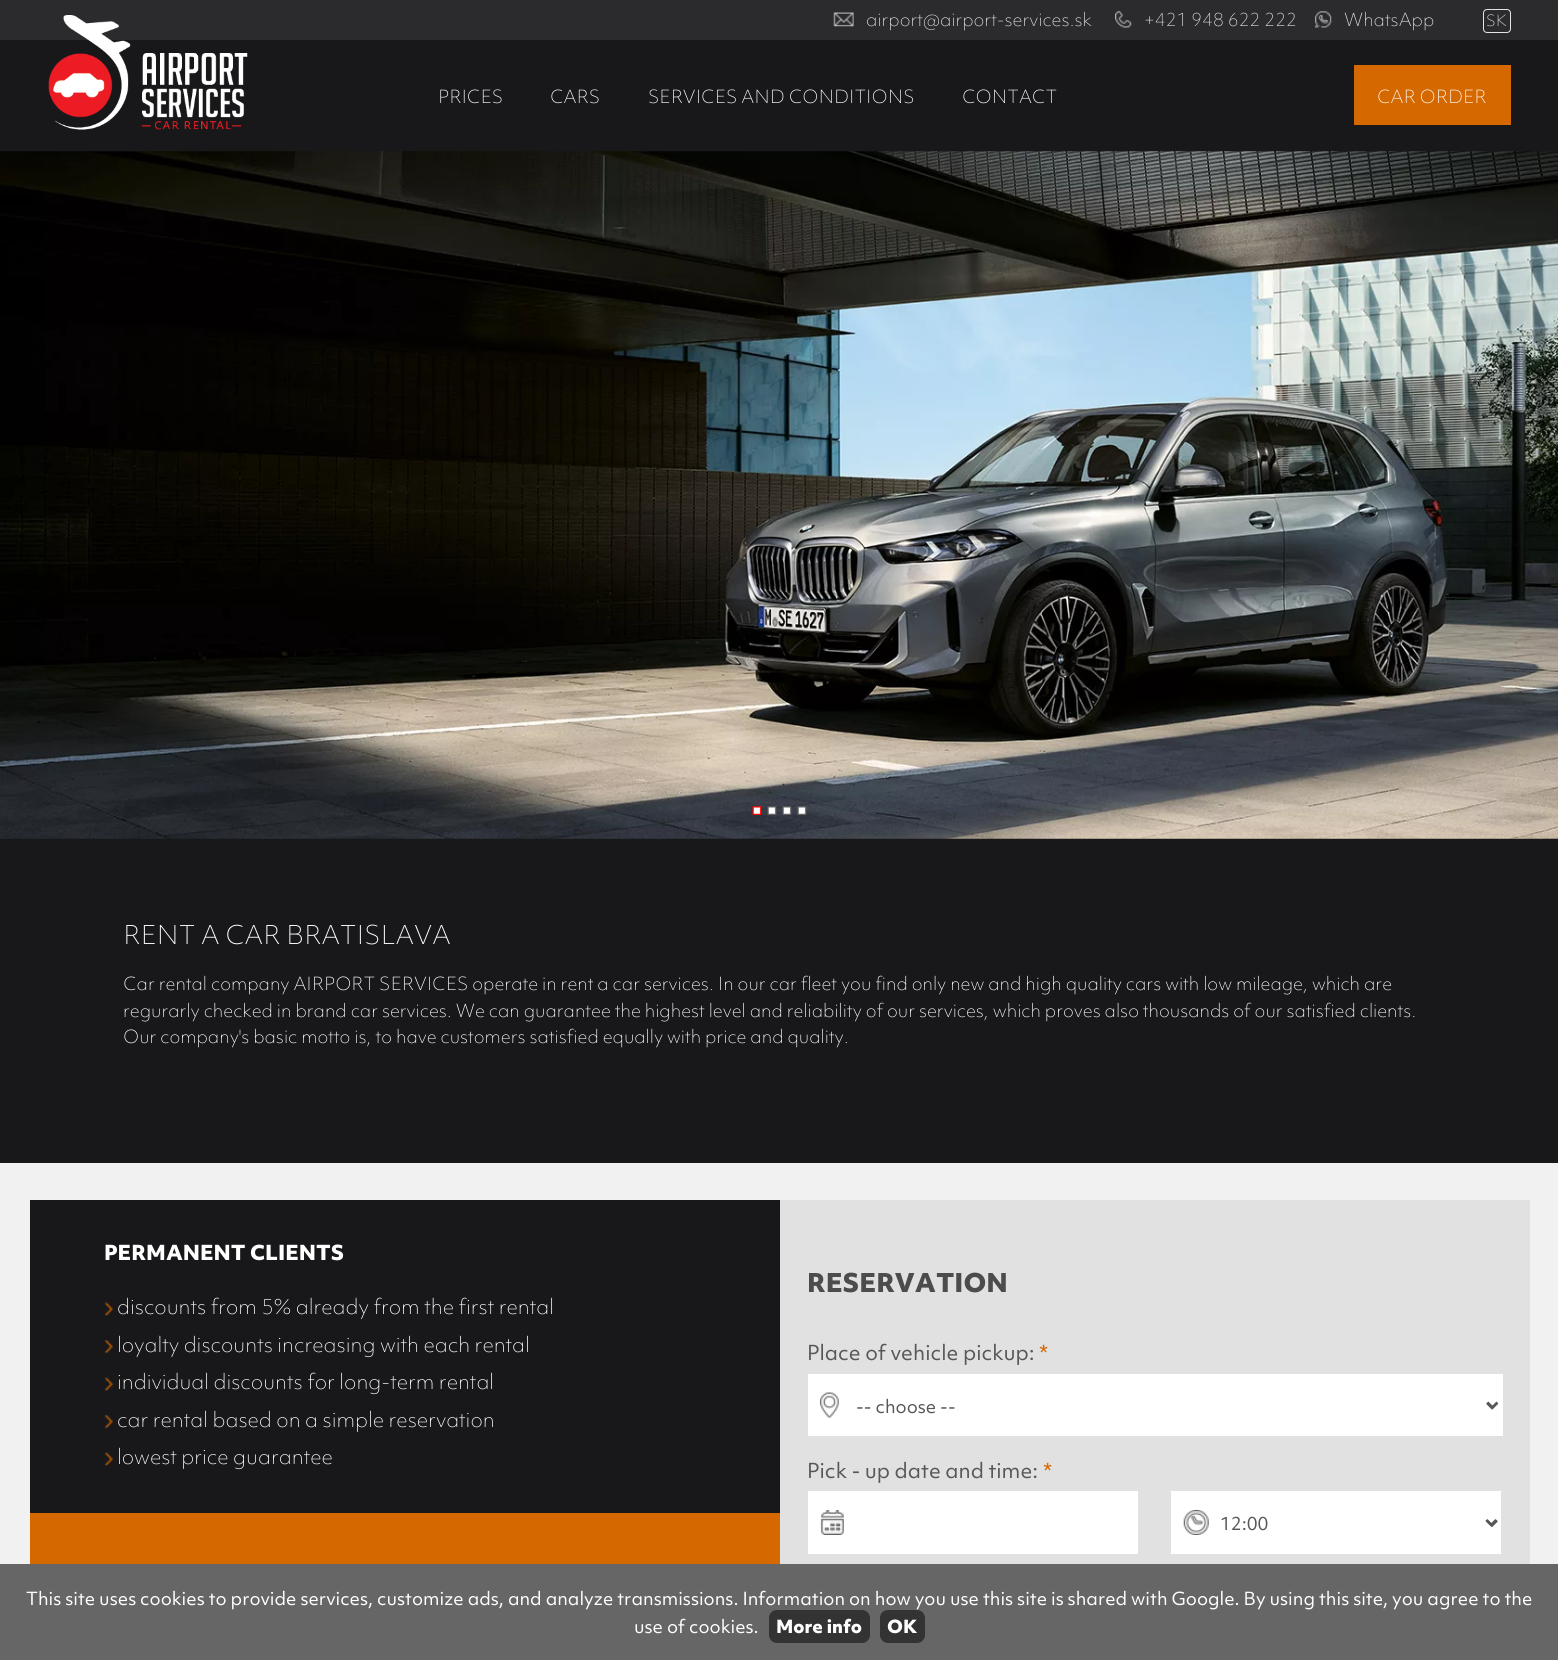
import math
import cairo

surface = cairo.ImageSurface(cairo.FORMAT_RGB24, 1558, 1660)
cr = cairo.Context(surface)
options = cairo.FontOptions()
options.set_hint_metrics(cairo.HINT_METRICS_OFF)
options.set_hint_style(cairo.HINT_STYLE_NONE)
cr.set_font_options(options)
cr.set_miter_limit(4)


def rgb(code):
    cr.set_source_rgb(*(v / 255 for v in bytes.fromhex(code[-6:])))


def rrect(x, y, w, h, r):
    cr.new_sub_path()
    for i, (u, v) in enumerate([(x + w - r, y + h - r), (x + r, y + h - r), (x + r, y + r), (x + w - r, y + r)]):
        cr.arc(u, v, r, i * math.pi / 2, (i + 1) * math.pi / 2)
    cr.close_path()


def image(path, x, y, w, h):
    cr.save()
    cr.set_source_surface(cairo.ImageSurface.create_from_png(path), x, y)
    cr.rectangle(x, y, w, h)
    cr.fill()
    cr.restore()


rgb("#f1f1f1")
cr.paint()
rgb("#2b2b2e")
cr.rectangle(0, 0, 1558, 40)
cr.fill()
image("img/1.png", 833, 12, 21, 15)
image("img/2.png", 1115, 11, 17, 17)
image("img/3.png", 1315, 11, 17, 17)
rrect(1483.5, 9.5, 27, 23, 3.5)
rgb("#e4e4e4")
cr.set_line_width(1)
cr.stroke()
rgb("#18181a")
cr.rectangle(0, 40, 1558, 1123)
cr.fill()
image("img/4.png", 48, 15, 200, 115)
rgb("#d56900")
cr.rectangle(1354, 65, 157, 60)
cr.fill()
image("img/5.png", 0, 151, 1558, 688)
image("img/6.png", 752, 806, 10, 9)
image("img/7.png", 767, 806, 10, 9)
image("img/8.png", 782, 806, 10, 9)
image("img/9.png", 797, 806, 10, 9)
rgb("#e1e1e1")
cr.rectangle(780, 1200, 750, 364)
cr.fill()
rgb("#18181a")
cr.rectangle(30, 1200, 750, 313)
cr.fill()
image("img/10.png", 105, 1302, 8, 15)
image("img/11.png", 105, 1340, 8, 14)
image("img/10.png", 105, 1377, 8, 15)
image("img/11.png", 105, 1415, 8, 14)
image("img/10.png", 105, 1452, 8, 15)
rgb("#d56900")
cr.rectangle(30, 1513, 750, 51)
cr.fill()
rgb("#ffffff")
cr.rectangle(808, 1374, 695, 62)
cr.fill()
image("img/12.png", 820, 1392, 679, 26)
cr.new_path()
cr.move_to(1487, 1403)
cr.line_to(1492, 1408)
cr.line_to(1497, 1403)
rgb("#575757")
cr.set_line_width(2.5)
cr.stroke()
rgb("#ffffff")
cr.rectangle(808, 1491, 330, 63)
cr.fill()
image("img/13.png", 820, 1510, 24, 25)
cr.rectangle(1171, 1491, 330, 63)
cr.fill()
image("img/14.png", 1183, 1510, 314, 25)
cr.new_path()
cr.move_to(1487, 1520.5)
cr.line_to(1492, 1525.5)
cr.line_to(1497, 1520.5)
rgb("#575757")
cr.stroke()
rgb("#666666")
cr.rectangle(0, 1564, 1558, 96)
cr.fill()
rgb("#333333")
rrect(769, 1610, 101, 33, 8)
cr.fill()
rrect(880, 1610, 45, 33, 8)
cr.fill()
cr.select_font_face("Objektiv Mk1 Thin")
cr.set_font_size(17.5)
rgb("#e4e4e4")
for x, y, s in [
    (866, 26, "airport@airport-services.sk"),
    (1144, 26, "+421 948 622 222"),
    (1344, 26, "WhatsApp"),
]:
    cr.move_to(x, y)
    cr.show_text(s)
cr.set_font_size(15)
cr.move_to(1486, 26)
cr.show_text("SK")
cr.set_font_size(17.5)
rgb("#ffffff")
for x, y, s in [
    (438, 103, "PRICES"),
    (550, 103, "CARS"),
    (648, 103, "SERVICES AND CONDITIONS"),
    (962, 103, "CONTACT"),
    (1377, 103, "CAR ORDER"),
]:
    cr.move_to(x, y)
    cr.show_text(s)
cr.set_font_size(25)
cr.move_to(123, 944)
cr.show_text("RENT A CAR BRATISLAVA")
cr.set_font_size(17.5)
for x, y, s in [
    (123, 990, "Car rental company AIRPORT SERVICES operate in rent a car services. In our car fleet you find only new and high quality cars with low mileage, which are"),
    (123, 1017, "regurarly checked in brand car services. We can guarantee the highest level and reliability of our services, which proves also thousands of our satisfied clients."),
    (123, 1043, "Our company's basic motto is, to have customers satisfied equally with price and quality."),
]:
    cr.move_to(x, y)
    cr.show_text(s)
cr.select_font_face("Objektiv Mk1", cairo.FONT_SLANT_NORMAL, cairo.FONT_WEIGHT_BOLD)
cr.set_font_size(20)
cr.move_to(104, 1260)
cr.show_text("PERMANENT CLIENTS")
cr.select_font_face("Objektiv Mk1 Thin")
for x, y, s in [
    (117, 1314, "discounts from 5% already from the first rental"),
    (117, 1352, "loyalty discounts increasing with each rental"),
    (117, 1389, "individual discounts for long-term rental"),
    (117, 1427, "car rental based on a simple reservation"),
    (117, 1464, "lowest price guarantee"),
]:
    cr.move_to(x, y)
    cr.show_text(s)
cr.select_font_face("Objektiv Mk1", cairo.FONT_SLANT_NORMAL, cairo.FONT_WEIGHT_BOLD)
cr.set_font_size(25)
rgb("#4c4c4c")
cr.move_to(807, 1292)
cr.show_text("RESERVATION")
cr.select_font_face("Objektiv Mk1")
cr.set_font_size(20)
rgb("#575757")
cr.move_to(807, 1360)
cr.show_text("Place of vehicle pickup:")
rgb("#d56900")
cr.move_to(1039, 1360)
cr.show_text("*")
cr.set_font_size(17.5)
rgb("#575757")
cr.move_to(856, 1413)
cr.show_text("-- choose --")
cr.set_font_size(20)
cr.move_to(807, 1478)
cr.show_text("Pick - up date and time:")
rgb("#d56900")
cr.move_to(1043, 1478)
cr.show_text("*")
cr.set_font_size(17.5)
rgb("#575757")
cr.move_to(1220, 1530)
cr.show_text("12:00")
rgb("#ffffff")
cr.move_to(26, 1605)
cr.show_text("This site uses cookies to provide services, customize ads, and analyze transmissions. Information on how you use this site is shared with Google. By using this site, you agree to the")
cr.move_to(634, 1633)
cr.show_text("use of cookies.")
cr.select_font_face("Objektiv Mk1", cairo.FONT_SLANT_NORMAL, cairo.FONT_WEIGHT_BOLD)
cr.move_to(776, 1633)
cr.show_text("More info")
cr.move_to(887, 1633)
cr.show_text("OK")
surface.write_to_png("page.png")
